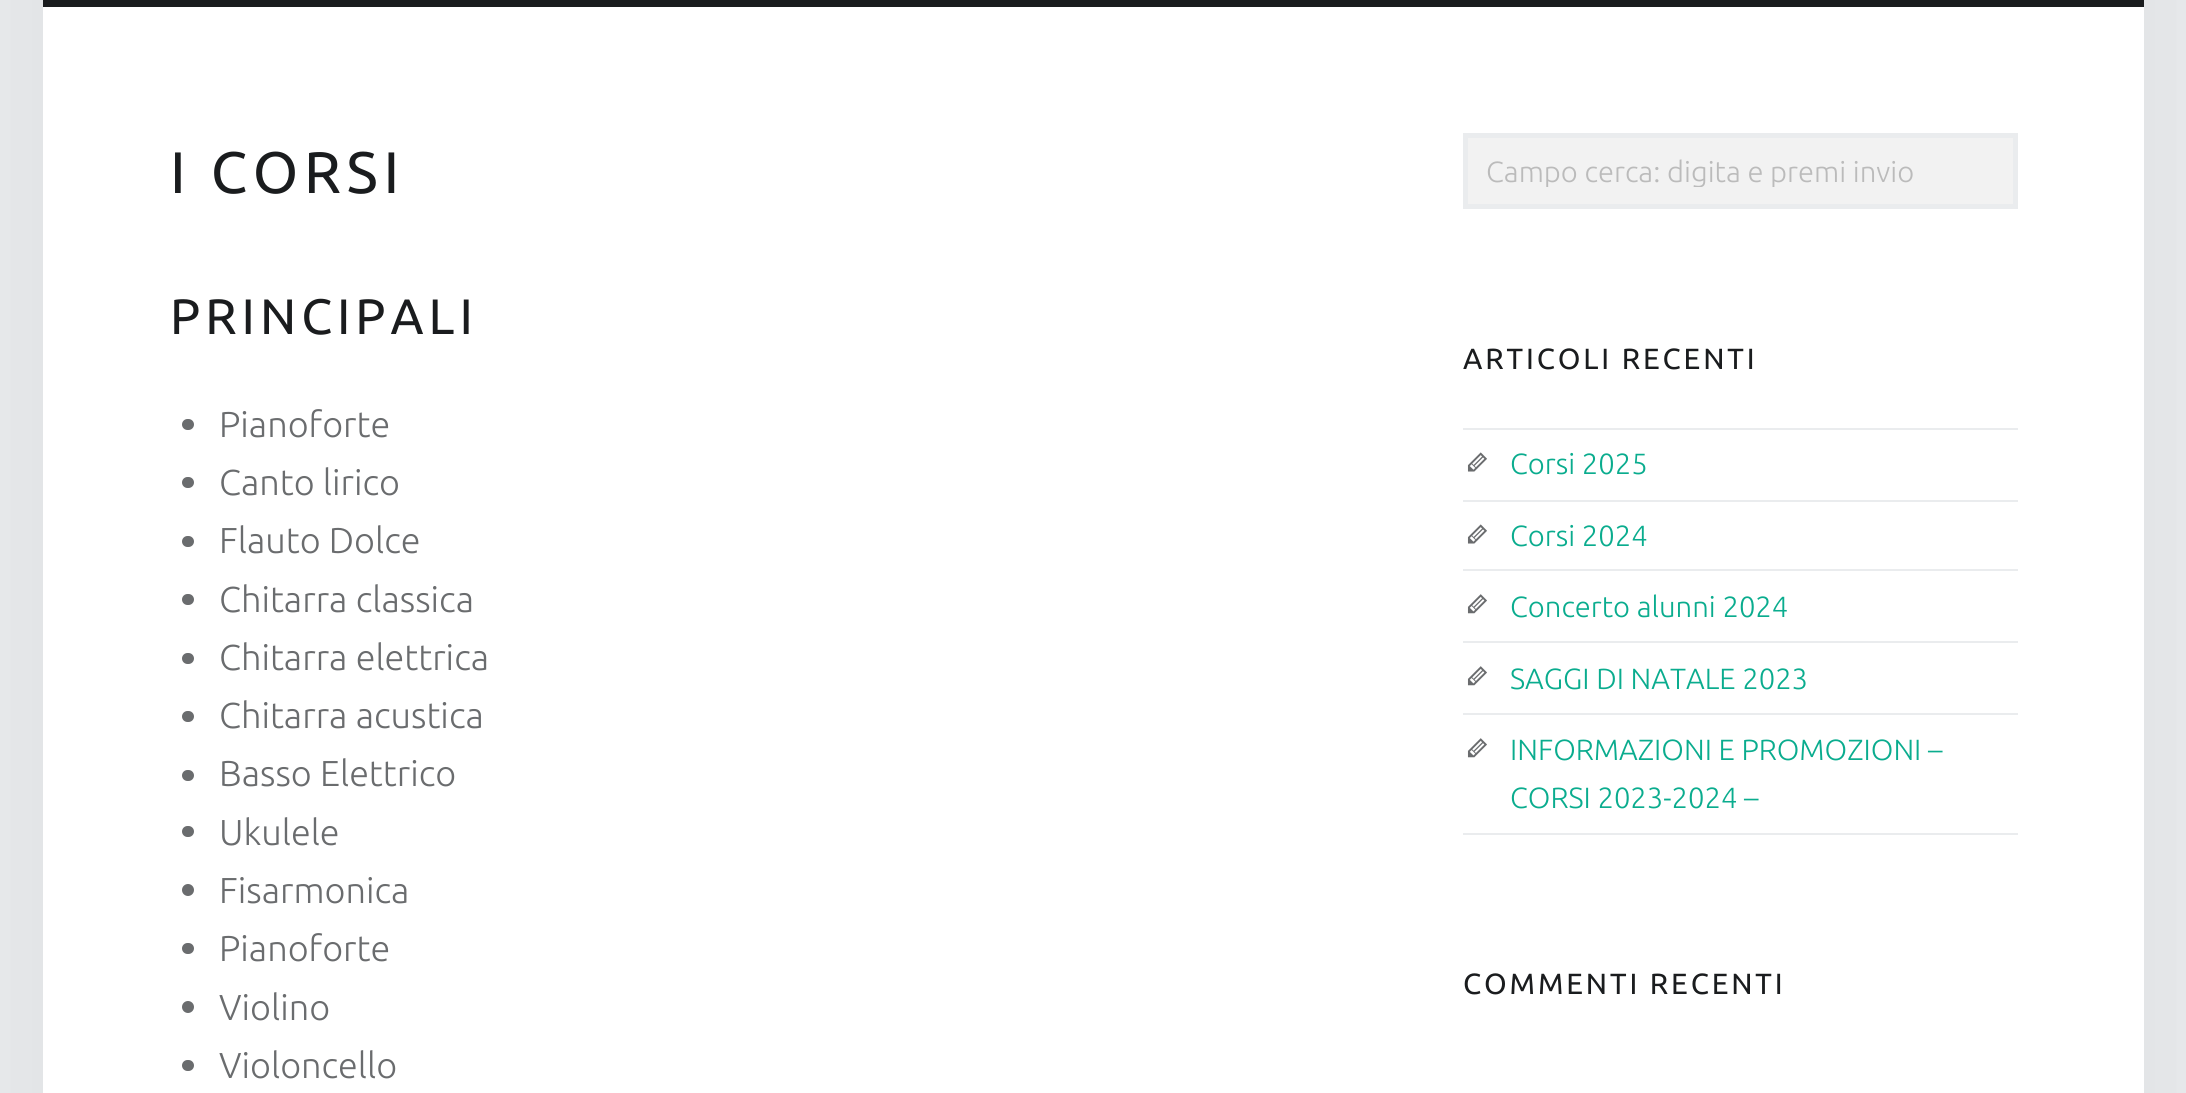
import math
import cairo

surface = cairo.ImageSurface(cairo.FORMAT_RGB24, 2186, 1093)
cr = cairo.Context(surface)
options = cairo.FontOptions()
options.set_hint_metrics(cairo.HINT_METRICS_OFF)
options.set_hint_style(cairo.HINT_STYLE_NONE)
cr.set_font_options(options)
cr.set_miter_limit(4)


def rgb(code):
    cr.set_source_rgb(*(v / 255 for v in bytes.fromhex(code[-6:])))


def tracked(x, y, s, letter, word):
    cr.move_to(x, y)
    for ch in s:
        cr.show_text(ch)
        cr.rel_move_to(letter + word * (ch == ' '), 0)


def rrect(x, y, w, h, r):
    cr.new_sub_path()
    for i, (u, v) in enumerate([(x + w - r, y + h - r), (x + r, y + h - r), (x + r, y + r), (x + w - r, y + r)]):
        cr.arc(u, v, r, i * math.pi / 2, (i + 1) * math.pi / 2)
    cr.close_path()


def soft_shadow(x, y, w, h, r, blur, alpha):
    cr.push_group_with_content(cairo.CONTENT_ALPHA)
    cr.set_operator(cairo.OPERATOR_SOURCE)
    for i in range(15, -16, -2):
        e = blur * i / 6
        if min(w, h) + 2 * e > 0:
            cr.set_source_rgba(0, 0, 0, alpha * math.erfc((i - 1) / 8.5) / 2)
            rrect(x - e, y - e, w + 2 * e, h + 2 * e, max(0, min(r + e + blur * .6, min(w, h) / 2 + e)))
            cr.fill()
    cr.mask(cr.pop_group())


def image(path, x, y, w, h):
    cr.save()
    cr.set_source_surface(cairo.ImageSurface.create_from_png(path), x, y)
    cr.rectangle(x, y, w, h)
    cr.fill()
    cr.restore()


rgb("#eaecee")
cr.paint()
rgb("#000000")
soft_shadow(43, -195, 2101, 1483, 0, 65, 0.07)
rgb("#ffffff")
cr.rectangle(43, 7, 2101, 1086)
cr.fill()
rgb("#1a1c1e")
cr.rectangle(43, 0, 2101, 7)
cr.fill()
rgb("#6a6c6e")
rrect(182, 419, 12, 11, 5.5)
cr.fill()
rrect(182, 477, 12, 11, 5.5)
cr.fill()
rrect(182, 536, 12, 11, 5.5)
cr.fill()
rrect(182, 594, 12, 11, 5.5)
cr.fill()
rrect(182, 653, 12, 11, 5.5)
cr.fill()
rrect(182, 711, 12, 11, 5.5)
cr.fill()
rrect(182, 770, 12, 11, 5.5)
cr.fill()
rrect(182, 826, 12, 11, 5.5)
cr.fill()
cr.arc(188, 890, 6, 0, 2 * math.pi)
cr.fill()
rrect(182, 943, 12, 11, 5.5)
cr.fill()
cr.arc(188, 1007, 6, 0, 2 * math.pi)
cr.fill()
rrect(182, 1060, 12, 11, 5.5)
cr.fill()
rgb("#f2f2f2")
cr.rectangle(1465.5, 135.5, 550, 71)
cr.fill_preserve()
rgb("#eaecee")
cr.set_line_width(5)
cr.stroke()
cr.rectangle(1463, 428, 555, 2)
cr.fill()
cr.rectangle(1463, 500, 555, 2)
cr.fill()
image("img/1.png", 1467, 452, 20, 20)
cr.rectangle(1463, 569, 555, 2)
cr.fill()
image("img/1.png", 1467, 524, 20, 20)
cr.rectangle(1463, 641, 555, 2)
cr.fill()
image("img/2.png", 1467, 594, 20, 20)
cr.rectangle(1463, 713, 555, 2)
cr.fill()
image("img/2.png", 1467, 666, 20, 20)
cr.rectangle(1463, 833, 555, 2)
cr.fill()
image("img/2.png", 1467, 738, 20, 20)
cr.select_font_face("Ubuntu")
cr.set_font_size(58.5)
rgb("#1a1c1e")
tracked(170, 193, "I CORSI", 5.75, 0)
cr.set_font_size(49.75)
tracked(170, 334, "PRINCIPALI", 5, 0)
cr.select_font_face("Ubuntu Light")
cr.set_font_size(36)
rgb("#6a6c6e")
for x, y, s in [
    (219, 437, "Pianoforte"),
    (219, 495, "Canto lirico"),
    (219, 553, "Flauto Dolce"),
    (219, 612, "Chitarra classica"),
    (219, 670, "Chitarra elettrica"),
    (219, 728, "Chitarra acustica"),
    (219, 786, "Basso Elettrico"),
    (219, 845, "Ukulele"),
    (219, 903, "Fisarmonica"),
    (219, 961, "Pianoforte"),
    (219, 1020, "Violino"),
    (219, 1078, "Violoncello"),
]:
    cr.move_to(x, y)
    cr.show_text(s)
cr.save()
cr.rectangle(1485, 155, 502, 32)
cr.clip()
cr.set_font_size(29.2)
rgb("#bbbbbb")
cr.move_to(1486, 182)
cr.show_text("Campo cerca: digita e premi invio")
cr.restore()
cr.select_font_face("Ubuntu")
cr.set_font_size(29.2)
rgb("#1a1c1e")
tracked(1463, 369, "ARTICOLI RECENTI", 2.9, 0)
cr.select_font_face("Ubuntu Light")
rgb("#0aac8e")
for x, y, s in [
    (1510, 474, "Corsi 2025"),
    (1510, 546, "Corsi 2024"),
    (1510, 617, "Concerto alunni 2024"),
    (1510, 689, "SAGGI DI NATALE 2023"),
    (1510, 760, "INFORMAZIONI E PROMOZIONI –"),
    (1510, 808, "CORSI 2023-2024 –"),
]:
    cr.move_to(x, y)
    cr.show_text(s)
cr.select_font_face("Ubuntu")
rgb("#1a1c1e")
tracked(1463, 994, "COMMENTI RECENTI", 2.9, 0)
surface.write_to_png("page.png")
